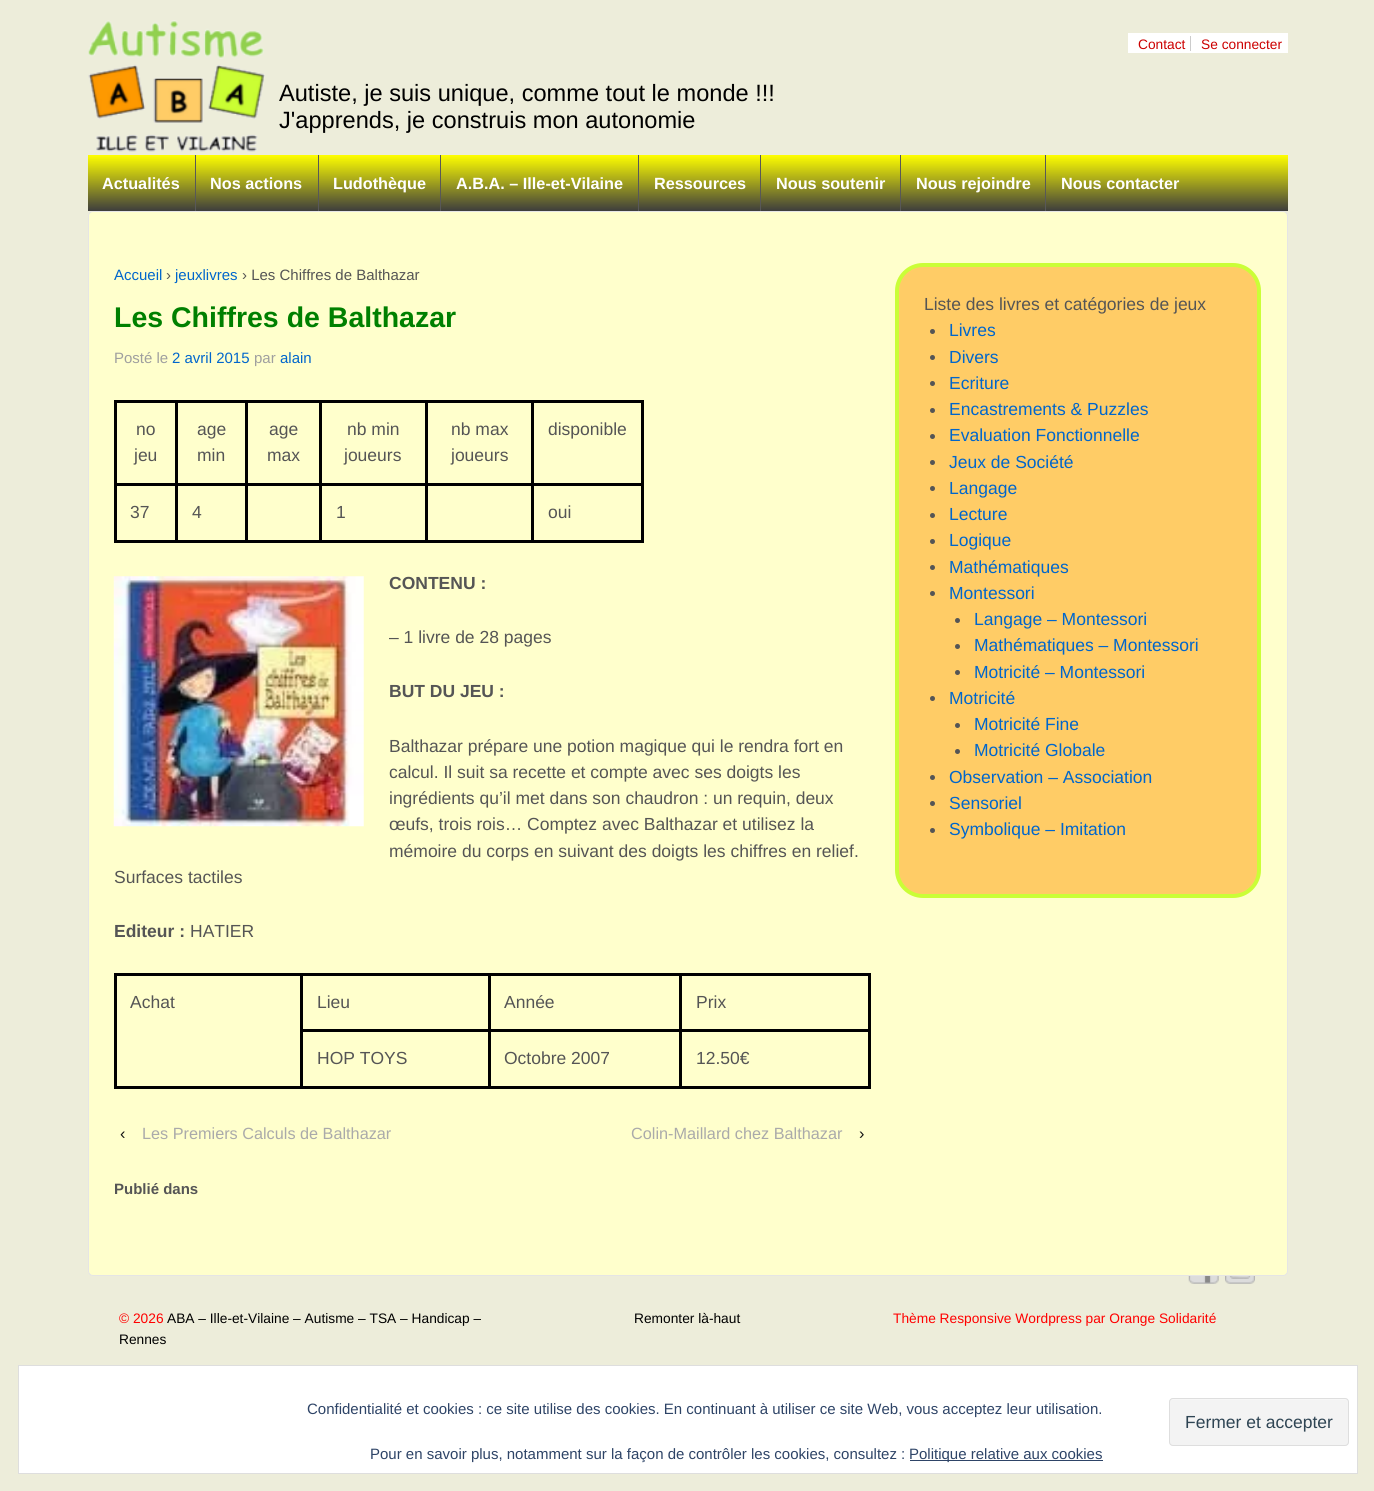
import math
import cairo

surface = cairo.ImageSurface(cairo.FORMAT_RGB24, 1374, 1491)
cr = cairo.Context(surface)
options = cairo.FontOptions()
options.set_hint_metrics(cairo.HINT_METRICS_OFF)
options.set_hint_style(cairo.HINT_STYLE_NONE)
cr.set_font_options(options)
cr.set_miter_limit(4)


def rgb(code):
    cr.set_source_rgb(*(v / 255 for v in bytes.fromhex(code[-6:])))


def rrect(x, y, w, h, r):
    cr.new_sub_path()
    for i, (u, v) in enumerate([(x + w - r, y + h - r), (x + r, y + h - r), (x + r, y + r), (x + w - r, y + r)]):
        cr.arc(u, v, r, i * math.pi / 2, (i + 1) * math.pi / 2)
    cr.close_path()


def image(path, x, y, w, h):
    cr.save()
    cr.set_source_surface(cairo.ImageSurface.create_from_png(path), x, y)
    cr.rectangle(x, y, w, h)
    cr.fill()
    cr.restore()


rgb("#ededda")
cr.paint()
image("img/1.png", 88, 20, 177, 132)
rgb("#ffffff")
cr.rectangle(1128, 33, 160, 20)
cr.fill()
rgb("#cccccc")
cr.rectangle(1190, 36, 1, 15)
cr.fill()
gradient = cairo.LinearGradient(688, 155, 688, 211)
gradient.add_color_stop_rgba(0, 1, 1, 0, 1)
gradient.add_color_stop_rgba(1, 0.239, 0.239, 0.239, 1)
cr.set_source(gradient)
cr.rectangle(88, 155, 1200, 56)
cr.fill()
for x, y, w, h, color in [
    (195, 155, 1, 56, "#585858"),
    (318, 155, 1, 56, "#585858"),
    (440, 155, 1, 56, "#585858"),
    (638, 155, 1, 56, "#585858"),
    (760, 155, 1, 56, "#585858"),
    (900, 155, 1, 56, "#585858"),
    (1045, 155, 1, 56, "#585858"),
]:
    rgb(color)
    cr.rectangle(x, y, w, h)
    cr.fill()
rgb("#ffffff")
cr.rectangle(18.5, 1365.5, 1339, 108)
cr.fill_preserve()
rgb("#dedede")
cr.set_line_width(1)
cr.stroke()
rgb("#f3f3f3")
rrect(1169, 1398, 180, 48, 4)
cr.fill()
rgb("#f7f7f7")
cr.new_path()
cr.move_to(1172, 1400)
cr.line_to(1345, 1400)
cr.curve_to(1346, 1400, 1348, 1401, 1348, 1402)
cr.curve_to(1348, 1400, 1347, 1399, 1346, 1399)
cr.line_to(1172, 1399)
cr.line_to(1171, 1400)
cr.line_to(1170, 1402)
cr.curve_to(1170, 1401, 1171, 1400, 1172, 1400)
cr.close_path()
cr.fill()
rrect(1169.5, 1398.5, 179, 47, 3.5)
rgb("#dedede")
cr.stroke()
rgb("#2e4467")
cr.rectangle(910, 1460, 193, 1)
cr.fill()
rgb("#ffffcc")
rrect(88.5, 211.5, 1199, 1064, 4.5)
cr.fill_preserve()
rgb("#e5e5e5")
cr.stroke()
for x, y, w, h, color in [
    (114, 400, 530, 3, "#000000"),
    (641, 400, 3, 143, "#000000"),
    (114, 540, 530, 3, "#000000"),
    (114, 400, 3, 143, "#000000"),
    (531, 483, 113, 3, "#000000"),
    (531, 483, 3, 60, "#000000"),
    (425, 483, 109, 3, "#000000"),
    (425, 483, 3, 60, "#000000"),
    (319, 483, 109, 3, "#000000"),
    (319, 483, 3, 60, "#000000"),
    (245, 483, 76, 3, "#000000"),
    (245, 483, 3, 60, "#000000"),
    (175, 483, 73, 3, "#000000"),
    (175, 483, 3, 60, "#000000"),
    (114, 483, 64, 3, "#000000"),
    (175, 400, 3, 85, "#000000"),
    (245, 400, 3, 85, "#000000"),
    (319, 400, 3, 85, "#000000"),
    (425, 400, 3, 85, "#000000"),
    (531, 400, 3, 85, "#000000"),
]:
    rgb(color)
    cr.rectangle(x, y, w, h)
    cr.fill()
image("img/2.png", 113, 576, 251, 251)
for x, y, w, h, color in [
    (114, 973, 756, 3, "#000000"),
    (868, 973, 3, 116, "#000000"),
    (114, 1086, 756, 3, "#000000"),
    (114, 973, 3, 116, "#000000"),
    (679, 1029, 191, 3, "#000000"),
    (679, 1029, 3, 60, "#000000"),
    (488, 1029, 193, 3, "#000000"),
    (488, 1029, 3, 60, "#000000"),
    (300, 1029, 190, 3, "#000000"),
    (488, 973, 3, 58, "#000000"),
    (679, 973, 3, 58, "#000000"),
    (300, 973, 3, 116, "#000000"),
]:
    rgb(color)
    cr.rectangle(x, y, w, h)
    cr.fill()
rgb("#ffcc66")
rrect(897, 265, 362, 631, 26)
cr.fill_preserve()
rgb("#cafe37")
cr.set_line_width(4)
cr.stroke()
rgb("#555555")
cr.arc(932.5, 331.5, 2.5, 0, 2 * math.pi)
cr.fill()
cr.arc(932.5, 357.5, 2.5, 0, 2 * math.pi)
cr.fill()
cr.arc(932.5, 383.5, 2.5, 0, 2 * math.pi)
cr.fill()
cr.arc(932.5, 410.5, 2.5, 0, 2 * math.pi)
cr.fill()
cr.arc(932.5, 436.5, 2.5, 0, 2 * math.pi)
cr.fill()
cr.arc(932.5, 462.5, 2.5, 0, 2 * math.pi)
cr.fill()
cr.arc(932.5, 488.5, 2.5, 0, 2 * math.pi)
cr.fill()
cr.arc(932.5, 515.5, 2.5, 0, 2 * math.pi)
cr.fill()
cr.arc(932.5, 541.5, 2.5, 0, 2 * math.pi)
cr.fill()
cr.arc(932.5, 567.5, 2.5, 0, 2 * math.pi)
cr.fill()
cr.arc(932.5, 593.5, 2.5, 0, 2 * math.pi)
cr.fill()
cr.arc(957.5, 620.5, 2.5, 0, 2 * math.pi)
cr.fill()
cr.arc(957.5, 646.5, 2.5, 0, 2 * math.pi)
cr.fill()
cr.arc(957.5, 672.5, 2.5, 0, 2 * math.pi)
cr.fill()
cr.arc(932.5, 698.5, 2.5, 0, 2 * math.pi)
cr.fill()
cr.arc(957.5, 725.5, 2.5, 0, 2 * math.pi)
cr.fill()
cr.arc(957.5, 751.5, 2.5, 0, 2 * math.pi)
cr.fill()
cr.arc(932.5, 777.5, 2.5, 0, 2 * math.pi)
cr.fill()
cr.arc(932.5, 803.5, 2.5, 0, 2 * math.pi)
cr.fill()
cr.arc(932.5, 830.5, 2.5, 0, 2 * math.pi)
cr.fill()
image("img/3.png", 1188, 1276, 31, 8)
image("img/4.png", 1225, 1276, 30, 8)
cr.select_font_face("Liberation Sans")
cr.set_font_size(13.75)
rgb("#cc0000")
cr.move_to(1138, 49)
cr.show_text("Contact")
cr.move_to(1201, 49)
cr.show_text("Se connecter")
cr.set_font_size(23.6)
rgb("#000000")
cr.move_to(279, 101)
cr.show_text("Autiste, je suis unique, comme tout le monde !!!")
cr.move_to(279, 128)
cr.show_text("J'apprends, je construis mon autonomie")
cr.select_font_face("Liberation Sans", cairo.FONT_SLANT_NORMAL, cairo.FONT_WEIGHT_BOLD)
cr.set_font_size(16.25)
rgb("#ffffff")
for x, y, s in [
    (102, 189, "Actualités"),
    (210, 189, "Nos actions"),
    (333, 189, "Ludothèque"),
    (456, 189, "A.B.A. – Ille-et-Vilaine"),
    (654, 189, "Ressources"),
    (776, 189, "Nous soutenir"),
    (916, 189, "Nous rejoindre"),
    (1061, 189, "Nous contacter"),
]:
    cr.move_to(x, y)
    cr.show_text(s)
cr.select_font_face("Liberation Sans")
cr.set_font_size(15)
rgb("#2e4467")
cr.move_to(307, 1414)
cr.show_text("Confidentialité et cookies : ce site utilise des cookies. En continuant à utiliser ce site Web, vous acceptez leur utilisation.")
cr.set_font_size(17.5)
rgb("#2e4453")
cr.move_to(1185, 1428)
cr.show_text("Fermer et accepter")
cr.set_font_size(15)
rgb("#2e4467")
cr.move_to(370, 1459)
cr.show_text("Pour en savoir plus, notamment sur la façon de contrôler les cookies, consultez :")
cr.move_to(909, 1459)
cr.show_text("Politique relative aux cookies")
rgb("#0066cc")
cr.move_to(114, 280)
cr.show_text("Accueil")
rgb("#555555")
cr.move_to(166, 280)
cr.show_text("›")
rgb("#0066cc")
cr.move_to(175, 280)
cr.show_text("jeuxlivres")
rgb("#555555")
cr.move_to(242, 280)
cr.show_text("› Les Chiffres de Balthazar")
cr.select_font_face("Liberation Sans", cairo.FONT_SLANT_NORMAL, cairo.FONT_WEIGHT_BOLD)
cr.set_font_size(28.5)
rgb("#008000")
cr.move_to(114, 327)
cr.show_text("Les Chiffres de Balthazar")
cr.select_font_face("Liberation Sans")
cr.set_font_size(15)
rgb("#9f9f9f")
cr.move_to(114, 363)
cr.show_text("Posté le")
rgb("#0066cc")
cr.move_to(172, 363)
cr.show_text("2 avril 2015")
rgb("#9f9f9f")
cr.move_to(254, 363)
cr.show_text("par")
rgb("#0066cc")
cr.move_to(280, 363)
cr.show_text("alain")
cr.set_font_size(17.5)
rgb("#555555")
for x, y, s in [
    (136, 435, "no"),
    (134, 461, "jeu"),
    (197, 435, "age"),
    (197, 461, "min"),
    (269, 435, "age"),
    (267, 461, "max"),
    (347, 435, "nb min"),
    (344, 461, "joueurs"),
    (451, 435, "nb max"),
    (451, 461, "joueurs"),
    (548, 435, "disponible"),
    (130, 518, "37"),
    (192, 518, "4"),
    (336, 518, "1"),
    (548, 518, "oui"),
]:
    cr.move_to(x, y)
    cr.show_text(s)
cr.select_font_face("Liberation Sans", cairo.FONT_SLANT_NORMAL, cairo.FONT_WEIGHT_BOLD)
cr.move_to(389, 589)
cr.show_text("CONTENU :")
cr.select_font_face("Liberation Sans")
cr.move_to(389, 643)
cr.show_text("– 1 livre de 28 pages")
cr.select_font_face("Liberation Sans", cairo.FONT_SLANT_NORMAL, cairo.FONT_WEIGHT_BOLD)
cr.move_to(389, 697)
cr.show_text("BUT DU JEU :")
cr.select_font_face("Liberation Sans")
for x, y, s in [
    (389, 752, "Balthazar prépare une potion magique qui le rendra fort en"),
    (389, 778, "calcul. Il suit sa recette et compte avec ses doigts les"),
    (389, 804, "ingrédients qu’il met dans son chaudron : un requin, deux"),
    (389, 830, "œufs, trois rois… Comptez avec Balthazar et utilisez la"),
    (389, 857, "mémoire du corps en suivant des doigts les chiffres en relief."),
    (114, 883, "Surfaces tactiles"),
]:
    cr.move_to(x, y)
    cr.show_text(s)
cr.select_font_face("Liberation Sans", cairo.FONT_SLANT_NORMAL, cairo.FONT_WEIGHT_BOLD)
cr.move_to(114, 937)
cr.show_text("Editeur :")
cr.select_font_face("Liberation Sans")
for x, y, s in [
    (190, 937, "HATIER"),
    (130, 1008, "Achat"),
    (317, 1008, "Lieu"),
    (504, 1008, "Année"),
    (696, 1008, "Prix"),
    (317, 1064, "HOP TOYS"),
    (504, 1064, "Octobre 2007"),
    (696, 1064, "12.50€"),
]:
    cr.move_to(x, y)
    cr.show_text(s)
cr.set_font_size(16.25)
rgb("#111111")
cr.move_to(120, 1139)
cr.show_text("‹")
rgb("#aaaaaa")
cr.move_to(142, 1139)
cr.show_text("Les Premiers Calculs de Balthazar")
cr.move_to(631, 1139)
cr.show_text("Colin-Maillard chez Balthazar")
rgb("#111111")
cr.move_to(859, 1139)
cr.show_text("›")
cr.select_font_face("Liberation Sans", cairo.FONT_SLANT_NORMAL, cairo.FONT_WEIGHT_BOLD)
cr.set_font_size(15)
rgb("#555555")
cr.move_to(114, 1194)
cr.show_text("Publié dans")
cr.select_font_face("Liberation Sans")
cr.set_font_size(17.5)
cr.move_to(924, 310)
cr.show_text("Liste des livres et catégories de jeux")
rgb("#0066cc")
for x, y, s in [
    (949, 336, "Livres"),
    (949, 363, "Divers"),
    (949, 389, "Ecriture"),
    (949, 415, "Encastrements & Puzzles"),
    (949, 441, "Evaluation Fonctionnelle"),
    (949, 468, "Jeux de Société"),
    (949, 494, "Langage"),
    (949, 520, "Lecture"),
    (949, 546, "Logique"),
    (949, 573, "Mathématiques"),
    (949, 599, "Montessori"),
    (974, 625, "Langage – Montessori"),
    (974, 651, "Mathématiques – Montessori"),
    (974, 678, "Motricité – Montessori"),
    (949, 704, "Motricité"),
    (974, 730, "Motricité Fine"),
    (974, 756, "Motricité Globale"),
    (949, 783, "Observation – Association"),
    (949, 809, "Sensoriel"),
    (949, 835, "Symbolique – Imitation"),
]:
    cr.move_to(x, y)
    cr.show_text(s)
cr.set_font_size(13.75)
rgb("#ff0000")
cr.move_to(119, 1323)
cr.show_text("© 2026")
rgb("#000000")
for x, y, s in [
    (167, 1323, "ABA – Ille-et-Vilaine – Autisme – TSA – Handicap –"),
    (119, 1344, "Rennes"),
    (634, 1323, "Remonter là-haut"),
]:
    cr.move_to(x, y)
    cr.show_text(s)
rgb("#ff0000")
cr.move_to(893, 1323)
cr.show_text("Thème Responsive Wordpress par Orange Solidarité")
surface.write_to_png("page.png")
